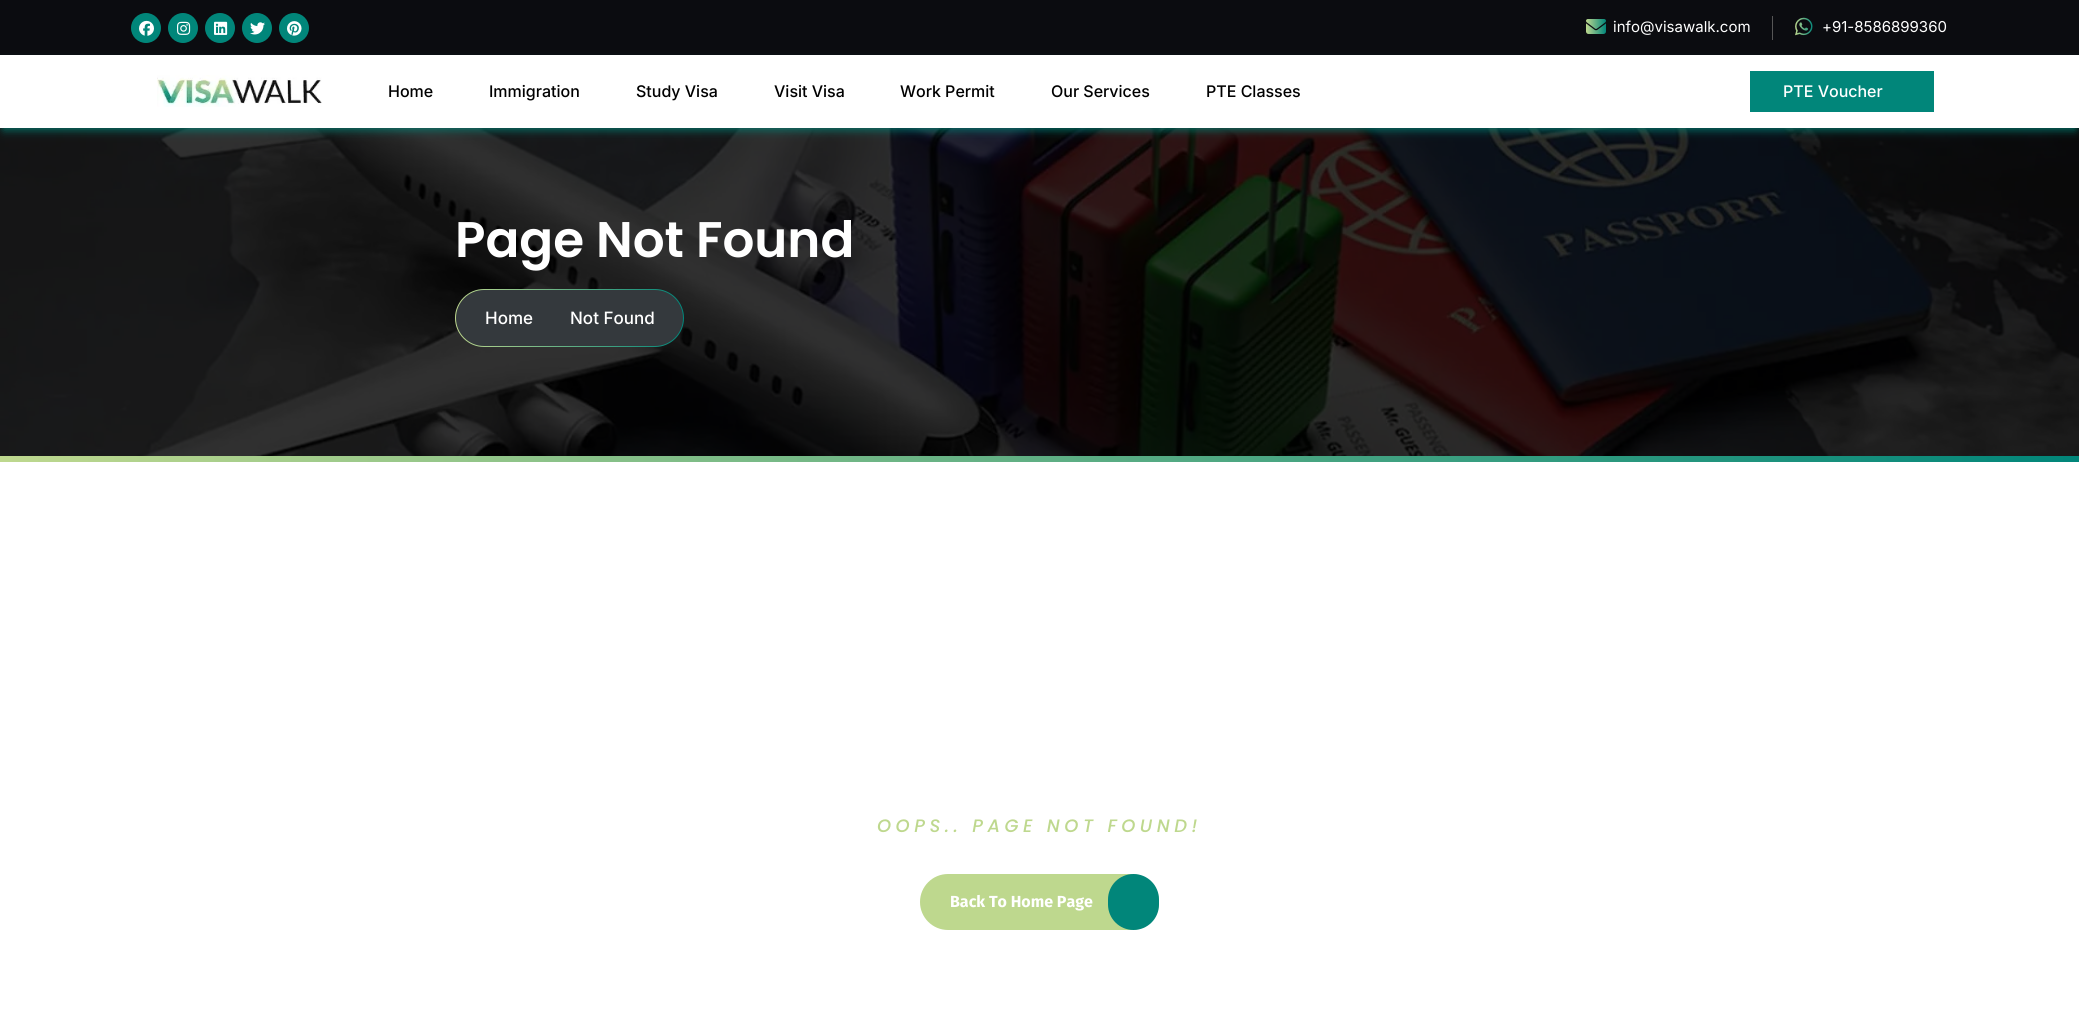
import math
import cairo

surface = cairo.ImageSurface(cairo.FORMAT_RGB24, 2079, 1012)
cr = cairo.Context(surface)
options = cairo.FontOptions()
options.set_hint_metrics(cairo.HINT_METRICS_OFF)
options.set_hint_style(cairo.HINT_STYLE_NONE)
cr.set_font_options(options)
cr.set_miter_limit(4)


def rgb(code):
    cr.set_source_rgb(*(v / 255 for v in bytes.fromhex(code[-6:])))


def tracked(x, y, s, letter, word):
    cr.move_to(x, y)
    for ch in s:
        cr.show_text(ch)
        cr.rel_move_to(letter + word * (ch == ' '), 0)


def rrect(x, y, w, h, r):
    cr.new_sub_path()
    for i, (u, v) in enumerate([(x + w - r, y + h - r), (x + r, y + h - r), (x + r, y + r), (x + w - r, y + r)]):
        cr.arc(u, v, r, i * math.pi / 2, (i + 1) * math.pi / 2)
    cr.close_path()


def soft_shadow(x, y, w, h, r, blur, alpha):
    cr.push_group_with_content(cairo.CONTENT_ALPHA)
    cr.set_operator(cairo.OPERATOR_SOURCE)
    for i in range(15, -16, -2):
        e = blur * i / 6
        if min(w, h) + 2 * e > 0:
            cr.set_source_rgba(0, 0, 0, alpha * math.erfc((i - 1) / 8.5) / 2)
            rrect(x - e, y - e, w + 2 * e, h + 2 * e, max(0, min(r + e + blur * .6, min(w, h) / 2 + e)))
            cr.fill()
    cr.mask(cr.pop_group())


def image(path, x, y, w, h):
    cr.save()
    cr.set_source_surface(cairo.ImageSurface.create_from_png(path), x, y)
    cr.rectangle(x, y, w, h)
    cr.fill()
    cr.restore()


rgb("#ffffff")
cr.paint()
rgb("#0b0c10")
cr.rectangle(0, 0, 2079, 55)
cr.fill()
rgb("#01867a")
cr.arc(146, 28, 15, 0, 2 * math.pi)
cr.fill()
image("img/1.png", 139, 20, 15, 16)
cr.arc(183, 28, 15, 0, 2 * math.pi)
cr.fill()
image("img/2.png", 177, 21, 14, 14)
cr.arc(220, 28, 15, 0, 2 * math.pi)
cr.fill()
image("img/3.png", 214, 21, 14, 14)
cr.arc(257, 28, 15, 0, 2 * math.pi)
cr.fill()
image("img/4.png", 250, 22, 15, 13)
cr.arc(294, 28, 15, 0, 2 * math.pi)
cr.fill()
image("img/5.png", 287, 21, 15, 15)
image("img/6.png", 1586, 19, 20, 15)
rgb("#565656")
cr.rectangle(1772, 16, 1, 24)
cr.fill()
image("img/7.png", 1795, 17, 18, 19)
image("img/9.png", 0, 128, 2079, 328)
rgb("#01867a")
soft_shadow(4, 64, 2071, 65, 0, 5, 1)
rgb("#ffffff")
cr.rectangle(0, 55, 2079, 73)
cr.fill()
image("img/8.png", 157, 75, 165, 32)
rgb("#01867a")
cr.rectangle(1750, 71, 184, 41)
cr.fill()
gradient = cairo.LinearGradient(455, 318, 684, 318)
gradient.add_color_stop_rgba(0, 0.745, 0.847, 0.557, 1)
gradient.add_color_stop_rgba(1, 0.004, 0.525, 0.478, 1)
cr.set_source(gradient)
rrect(455, 289, 229, 58, 29)
cr.fill()
rgb("#34393d")
rrect(456, 290, 227, 56, 28)
cr.fill()
gradient = cairo.LinearGradient(0, 459, 2079, 459)
gradient.add_color_stop_rgba(0, 0.745, 0.847, 0.557, 1)
gradient.add_color_stop_rgba(1, 0.004, 0.525, 0.478, 1)
cr.set_source(gradient)
cr.rectangle(0, 456, 2079, 6)
cr.fill()
rgb("#bed88e")
rrect(920, 874, 239, 56, 28)
cr.fill()
rgb("#01867a")
rrect(1108, 874, 51, 56, 25.5)
cr.fill()
cr.select_font_face("Inter")
cr.set_font_size(15)
rgb("#ffffff")
cr.move_to(1613, 32)
cr.show_text("info@visawalk.com")
cr.move_to(1822, 32)
cr.show_text("+91-8586899360")
cr.select_font_face("Inter Medium")
cr.set_font_size(16)
rgb("#000000")
for x, y, s in [
    (388, 97, "Home"),
    (489, 97, "Immigration"),
    (636, 97, "Study Visa"),
    (774, 97, "Visit Visa"),
    (900, 97, "Work Permit"),
    (1051, 97, "Our Services"),
    (1206, 97, "PTE Classes"),
]:
    cr.move_to(x, y)
    cr.show_text(s)
rgb("#ffffff")
cr.move_to(1783, 97)
cr.show_text("PTE Voucher")
cr.select_font_face("Poppins SemiBold")
cr.set_font_size(50)
cr.move_to(455, 257)
cr.show_text("Page Not Found")
cr.select_font_face("Inter Medium")
cr.set_font_size(17)
cr.move_to(485, 324)
cr.show_text("Home")
cr.move_to(570, 324)
cr.show_text("Not Found")
cr.select_font_face("Poppins Medium", cairo.FONT_SLANT_ITALIC)
cr.set_font_size(18)
rgb("#bed88e")
tracked(877, 832, "OOPS.. PAGE NOT FOUND!", 4.5, 0)
cr.select_font_face("Fira Sans", cairo.FONT_SLANT_NORMAL, cairo.FONT_WEIGHT_BOLD)
cr.set_font_size(16)
rgb("#ffffff")
cr.move_to(950, 907)
cr.show_text("Back To Home Page")
surface.write_to_png("page.png")
